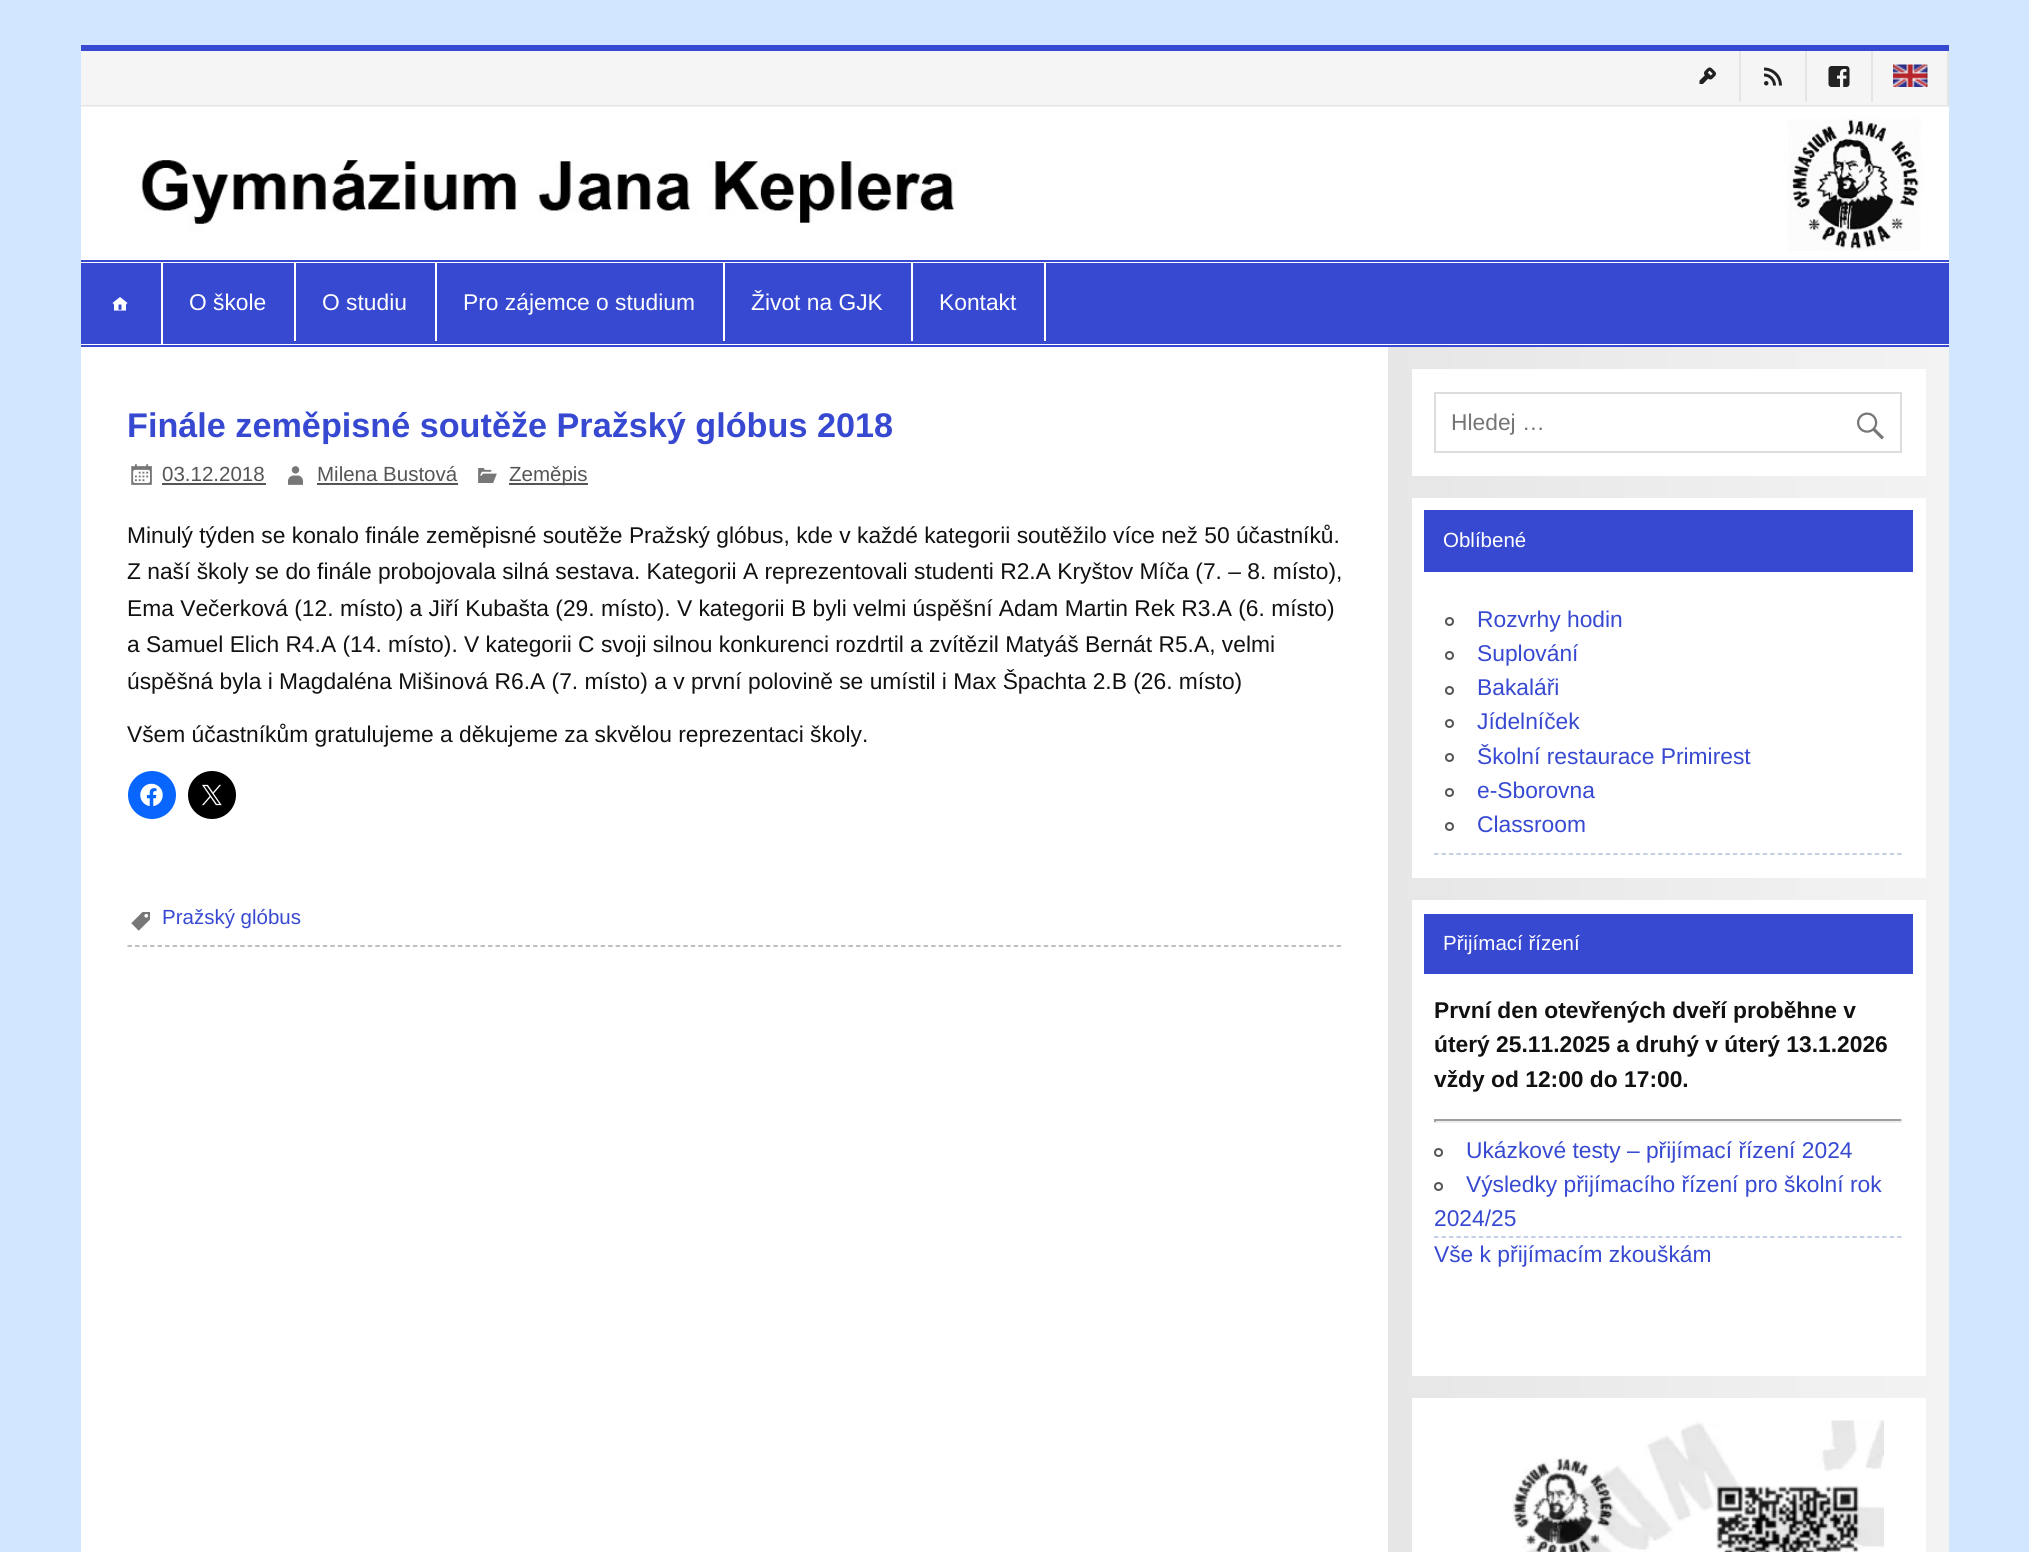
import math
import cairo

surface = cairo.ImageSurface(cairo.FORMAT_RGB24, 2029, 1552)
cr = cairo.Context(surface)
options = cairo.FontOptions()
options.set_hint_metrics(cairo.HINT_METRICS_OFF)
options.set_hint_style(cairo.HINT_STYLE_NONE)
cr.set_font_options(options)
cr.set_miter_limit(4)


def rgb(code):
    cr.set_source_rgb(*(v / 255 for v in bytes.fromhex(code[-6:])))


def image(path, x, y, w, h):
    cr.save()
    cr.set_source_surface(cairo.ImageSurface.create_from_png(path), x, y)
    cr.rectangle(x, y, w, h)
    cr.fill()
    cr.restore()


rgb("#d3e6ff")
cr.paint()
for x, y, w, h, color in [
    (81, 107, 1868, 1445, "#ffffff"),
    (81, 45, 1868, 6, "#3749d1"),
    (81, 51, 1866, 54, "#f5f5f5"),
    (81, 105, 1868, 2, "#e5e5e5"),
    (1739, 51, 2, 51, "#e5e5e5"),
]:
    rgb(color)
    cr.rectangle(x, y, w, h)
    cr.fill()
image("img/1.png", 1699, 67, 17, 17)
cr.rectangle(1805, 51, 2, 51)
cr.fill()
image("img/2.png", 1764, 67, 18, 19)
cr.rectangle(1871, 51, 2, 51)
cr.fill()
image("img/3.png", 1828, 66, 22, 21)
cr.rectangle(1947, 51, 2, 54)
cr.fill()
image("img/4.png", 1893, 64, 35, 23)
image("img/5.png", 81, 106, 1868, 145)
for x, y, w, h, color in [
    (81, 260, 1868, 2, "#3749d1"),
    (81, 345, 1868, 2, "#3749d1"),
    (81, 263, 1868, 81, "#3749d1"),
    (161, 263, 2, 81, "#ffffff"),
]:
    rgb(color)
    cr.rectangle(x, y, w, h)
    cr.fill()
image("img/6.png", 112, 297, 16, 14)
for x, y, w, h, color in [
    (294, 263, 2, 78, "#ffffff"),
    (435, 263, 2, 78, "#ffffff"),
    (723, 263, 2, 78, "#ffffff"),
    (911, 263, 2, 78, "#ffffff"),
    (1044, 263, 2, 78, "#ffffff"),
]:
    rgb(color)
    cr.rectangle(x, y, w, h)
    cr.fill()
cr.new_path()
cr.move_to(127.5, 946)
cr.line_to(1342.5, 946)
rgb("#aaaaaa")
cr.set_line_width(1.5)
cr.set_dash([4.5, 3.01])
cr.stroke()
image("img/7.png", 131, 464, 21, 21)
rgb("#555555")
cr.rectangle(162, 483, 104, 2)
cr.fill()
image("img/8.png", 288, 466, 15, 19)
cr.rectangle(317, 483, 141, 2)
cr.fill()
image("img/9.png", 478, 468, 19, 15)
cr.rectangle(509, 483, 79, 2)
cr.fill()
rgb("#0866ff")
cr.arc(152, 795, 24, 0, 2 * math.pi)
cr.fill()
image("img/10.png", 140, 783, 23, 24)
rgb("#000000")
cr.arc(212, 795, 24, 0, 2 * math.pi)
cr.fill()
image("img/11.png", 202, 784, 20, 22)
image("img/12.png", 131, 912, 19, 19)
gradient = cairo.LinearGradient(1387, 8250, 1949, 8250)
gradient.add_color_stop_rgba(0, 0.902, 0.902, 0.902, 1)
gradient.add_color_stop_rgba(1, 0.953, 0.953, 0.953, 1)
cr.set_source(gradient)
cr.rectangle(1388, 347, 561, 1205)
cr.fill()
rgb("#ffffff")
cr.rectangle(1412, 369, 514, 107)
cr.fill()
cr.rectangle(1435, 393, 466, 59)
rgb("#dddddd")
cr.set_line_width(2)
cr.set_dash([])
cr.stroke()
image("img/13.png", 1857, 412, 27, 28)
rgb("#ffffff")
cr.rectangle(1412, 498, 514, 380)
cr.fill()
rgb("#3749d1")
cr.rectangle(1424, 510, 489, 62)
cr.fill()
cr.new_path()
cr.move_to(1434, 854)
cr.line_to(1902, 854)
rgb("#b1c1da")
cr.set_line_width(1.5)
cr.set_dash([4.5, 2.97])
cr.stroke()
cr.arc(1449.5, 621.5, 3.5, 0, 2 * math.pi)
rgb("#555555")
cr.set_line_width(2)
cr.set_dash([])
cr.stroke()
cr.arc(1449.5, 655.5, 3.5, 0, 2 * math.pi)
cr.stroke()
cr.arc(1449.5, 690.5, 3.5, 0, 2 * math.pi)
cr.stroke()
cr.arc(1449.5, 723.5, 3.5, 0, 2 * math.pi)
cr.stroke()
cr.arc(1449.5, 757.5, 3.5, 0, 2 * math.pi)
cr.stroke()
cr.arc(1449.5, 792.5, 3.5, 0, 2 * math.pi)
cr.stroke()
cr.arc(1449.5, 826.5, 3.5, 0, 2 * math.pi)
cr.stroke()
for x, y, w, h, color in [
    (1412, 900, 514, 476, "#ffffff"),
    (1424, 914, 489, 60, "#3749d1"),
    (1434, 1119, 468, 2, "#9f9f9f"),
    (1901, 1119, 2, 3, "#eeeeee"),
    (1434, 1121, 468, 2, "#eeeeee"),
    (1434, 1119, 2, 3, "#9f9f9f"),
]:
    rgb(color)
    cr.rectangle(x, y, w, h)
    cr.fill()
cr.arc(1438.5, 1152.5, 3.5, 0, 2 * math.pi)
rgb("#555555")
cr.stroke()
cr.arc(1438.5, 1186.5, 3.5, 0, 2 * math.pi)
cr.stroke()
cr.new_path()
cr.move_to(1434, 1237)
cr.line_to(1902, 1237)
rgb("#b1c1da")
cr.set_line_width(1.5)
cr.set_dash([4.5, 2.97])
cr.stroke()
rgb("#ffffff")
cr.rectangle(1412, 1398, 514, 154)
cr.fill()
image("img/14.png", 1512, 1420, 372, 132)
cr.select_font_face("Liberation Sans")
cr.set_font_size(22.8)
for x, y, s in [
    (189, 310, "O škole"),
    (322, 310, "O studiu"),
    (463, 310, "Pro zájemce o studium"),
    (751, 310, "Život na GJK"),
    (939, 310, "Kontakt"),
]:
    cr.move_to(x, y)
    cr.show_text(s)
cr.select_font_face("Liberation Sans", cairo.FONT_SLANT_NORMAL, cairo.FONT_WEIGHT_BOLD)
cr.set_font_size(34.2)
rgb("#3749d1")
cr.move_to(127, 437)
cr.show_text("Finále zeměpisné soutěže Pražský glóbus 2018")
cr.select_font_face("Liberation Sans")
cr.set_font_size(20.5)
rgb("#555555")
for x, y, s in [
    (162, 481, "03.12.2018"),
    (317, 481, "Milena Bustová"),
    (509, 481, "Zeměpis"),
]:
    cr.move_to(x, y)
    cr.show_text(s)
cr.set_font_size(22.8)
rgb("#111111")
for x, y, s in [
    (127, 543, "Minulý týden se konalo finále zeměpisné soutěže Pražský glóbus, kde v každé kategorii soutěžilo více než 50 účastníků."),
    (127, 579, "Z naší školy se do finále probojovala silná sestava. Kategorii A reprezentovali studenti R2.A Kryštov Míča (7. – 8. místo),"),
    (127, 616, "Ema Večerková (12. místo) a Jiří Kubašta (29. místo). V kategorii B byli velmi úspěšní Adam Martin Rek R3.A (6. místo)"),
    (127, 652, "a Samuel Elich R4.A (14. místo). V kategorii C svoji silnou konkurenci rozdrtil a zvítězil Matyáš Bernát R5.A, velmi"),
    (127, 689, "úspěšná byla i Magdaléna Mišinová R6.A (7. místo) a v první polovině se umístil i Max Špachta 2.B (26. místo)"),
    (127, 742, "Všem účastníkům gratulujeme a děkujeme za skvělou reprezentaci školy."),
]:
    cr.move_to(x, y)
    cr.show_text(s)
cr.set_font_size(20.5)
rgb("#3749d1")
cr.move_to(162, 924)
cr.show_text("Pražský glóbus")
cr.set_font_size(22.8)
rgb("#757575")
cr.move_to(1451, 430)
cr.show_text("Hledej …")
cr.set_font_size(20.5)
rgb("#ffffff")
cr.move_to(1443, 547)
cr.show_text("Oblíbené")
cr.set_font_size(22.8)
rgb("#3749d1")
for x, y, s in [
    (1477, 627, "Rozvrhy hodin"),
    (1477, 661, "Suplování"),
    (1477, 695, "Bakaláři"),
    (1477, 729, "Jídelníček"),
    (1477, 764, "Školní restaurace Primirest"),
    (1477, 798, "e-Sborovna"),
    (1477, 832, "Classroom"),
]:
    cr.move_to(x, y)
    cr.show_text(s)
cr.set_font_size(20.5)
rgb("#ffffff")
cr.move_to(1443, 950)
cr.show_text("Přijímací řízení")
cr.select_font_face("Liberation Sans", cairo.FONT_SLANT_NORMAL, cairo.FONT_WEIGHT_BOLD)
cr.set_font_size(22.8)
rgb("#111111")
for x, y, s in [
    (1434, 1018, "První den otevřených dveří proběhne v"),
    (1434, 1052, "úterý 25.11.2025 a druhý v úterý 13.1.2026"),
    (1434, 1087, "vždy od 12:00 do 17:00."),
]:
    cr.move_to(x, y)
    cr.show_text(s)
cr.select_font_face("Liberation Sans")
rgb("#3749d1")
for x, y, s in [
    (1466, 1158, "Ukázkové testy – přijímací řízení 2024"),
    (1466, 1192, "Výsledky přijímacího řízení pro školní rok"),
    (1434, 1226, "2024/25"),
    (1434, 1262, "Vše k přijímacím zkouškám"),
]:
    cr.move_to(x, y)
    cr.show_text(s)
surface.write_to_png("page.png")
